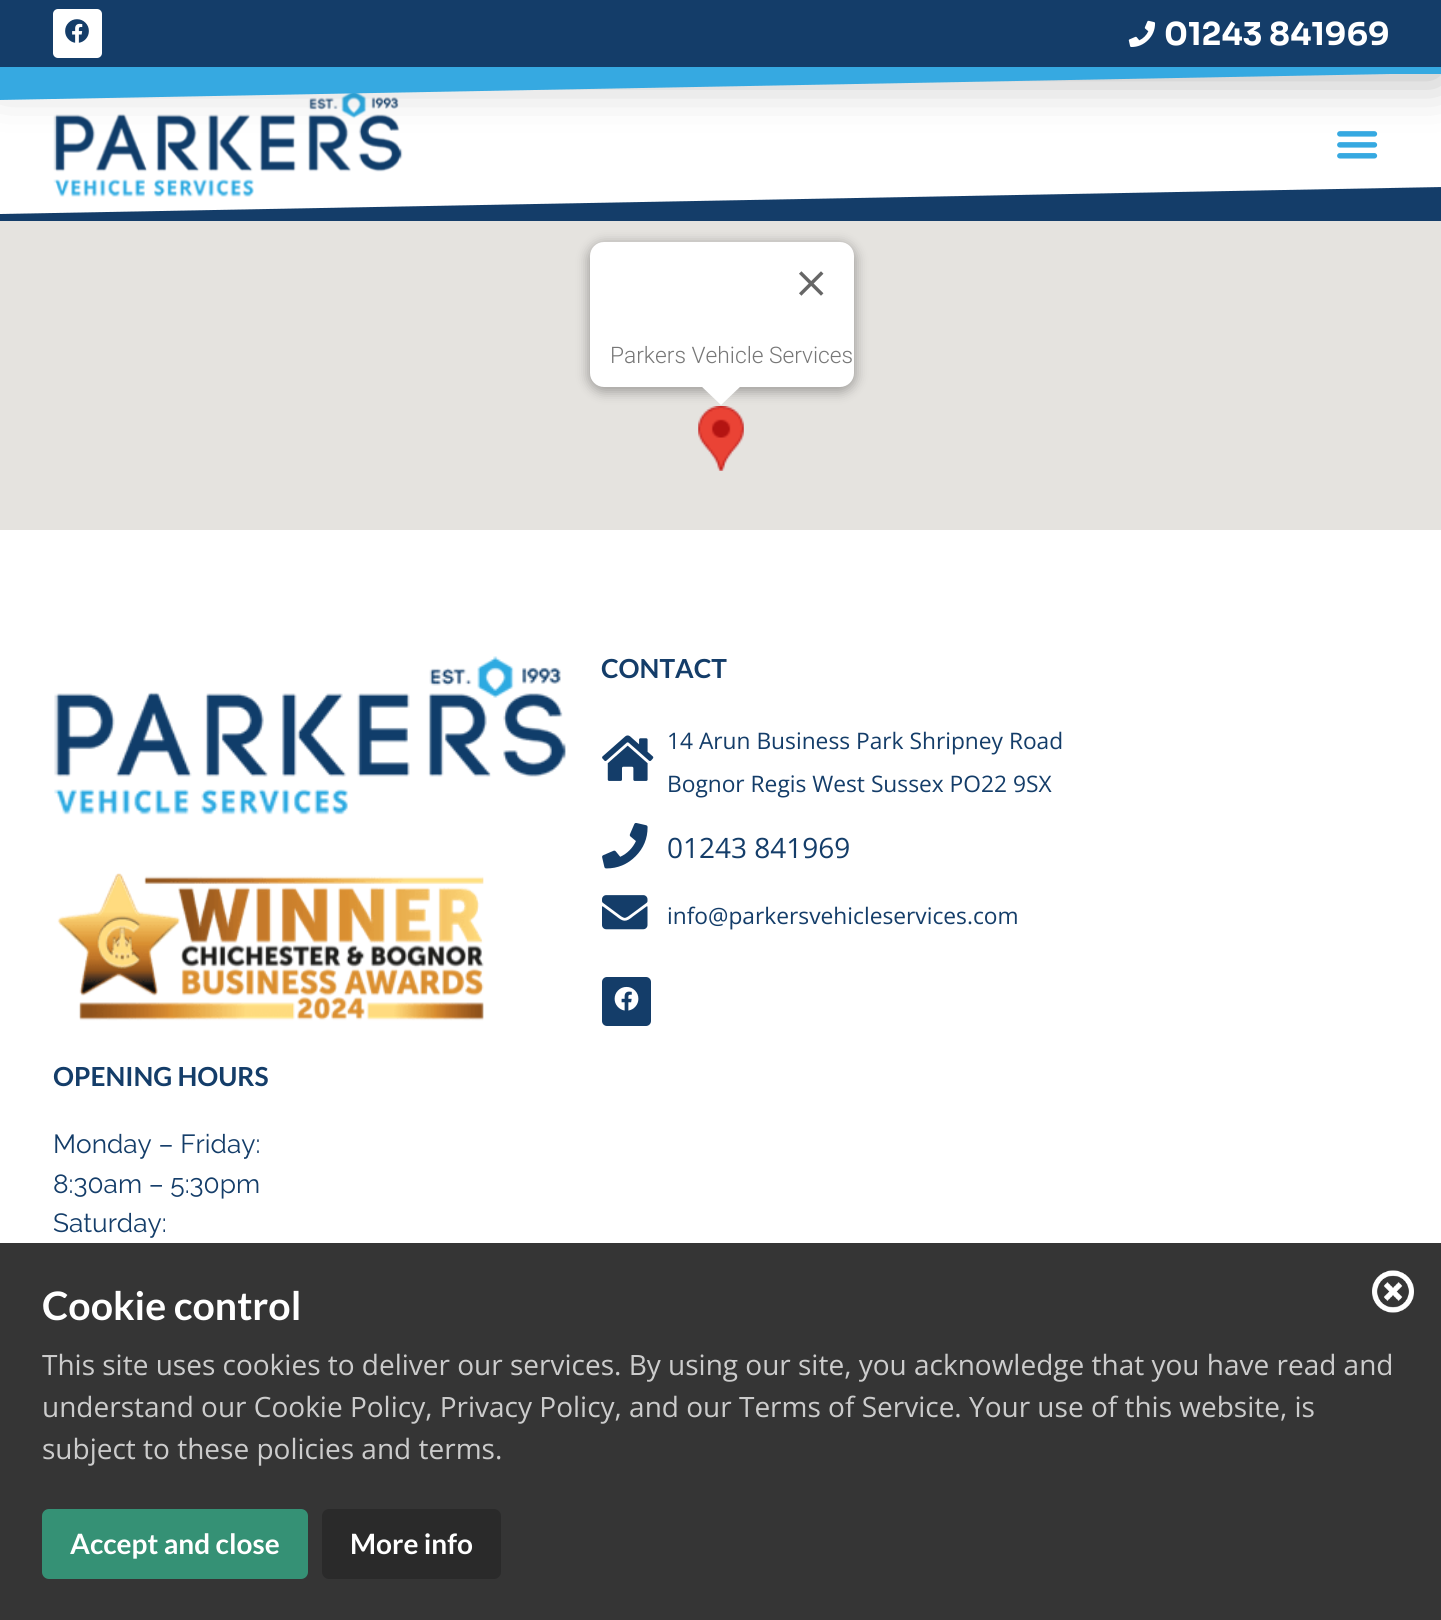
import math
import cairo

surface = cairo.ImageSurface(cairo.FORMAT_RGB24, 1441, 1620)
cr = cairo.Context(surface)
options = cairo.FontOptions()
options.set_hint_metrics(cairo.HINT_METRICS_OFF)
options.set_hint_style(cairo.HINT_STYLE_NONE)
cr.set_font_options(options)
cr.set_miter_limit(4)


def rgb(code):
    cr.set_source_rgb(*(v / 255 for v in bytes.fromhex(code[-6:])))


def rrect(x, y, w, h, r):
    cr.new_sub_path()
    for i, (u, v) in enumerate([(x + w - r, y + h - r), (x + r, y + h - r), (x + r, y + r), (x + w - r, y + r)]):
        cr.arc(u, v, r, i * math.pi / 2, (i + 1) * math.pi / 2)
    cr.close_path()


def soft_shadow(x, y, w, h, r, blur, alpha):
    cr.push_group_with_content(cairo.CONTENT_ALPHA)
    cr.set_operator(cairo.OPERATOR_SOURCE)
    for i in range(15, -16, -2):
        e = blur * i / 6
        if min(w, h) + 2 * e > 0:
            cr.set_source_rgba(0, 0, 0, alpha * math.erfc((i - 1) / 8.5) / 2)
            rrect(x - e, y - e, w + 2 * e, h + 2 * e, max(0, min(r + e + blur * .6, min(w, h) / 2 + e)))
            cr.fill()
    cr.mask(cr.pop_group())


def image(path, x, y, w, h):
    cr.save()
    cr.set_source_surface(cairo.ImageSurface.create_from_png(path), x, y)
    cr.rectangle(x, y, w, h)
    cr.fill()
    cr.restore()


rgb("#ffffff")
cr.paint()
rgb("#143d69")
cr.rectangle(0, 215, 1441, 6)
cr.fill()
cr.new_path()
cr.move_to(-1, 214)
cr.line_to(-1, 215)
cr.line_to(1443, 215)
cr.line_to(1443, 187)
cr.close_path()
cr.fill()
image("img/3.png", 53, 93, 350, 104)
image("img/4.png", 1337, 131, 41, 28)
rgb("#000000")
soft_shadow(0, 4, 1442, 73, 0, 26, 0.3)
rgb("#143d69")
cr.rectangle(0, 0, 1441, 67)
cr.fill()
rgb("#36a9e1")
cr.rectangle(0, 67, 1441, 7)
cr.fill()
rgb("#ffffff")
rrect(53, 9, 49, 49, 5)
cr.fill()
image("img/1.png", 65, 19, 24, 24)
image("img/2.png", 1128, 20, 28, 27)
rgb("#36a9e1")
cr.new_path()
cr.move_to(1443, 73)
cr.line_to(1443, 72)
cr.line_to(-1, 72)
cr.line_to(-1, 100)
cr.close_path()
cr.fill()
rgb("#e5e3df")
cr.rectangle(0, 221, 1441, 309)
cr.fill()
image("img/6.png", 698, 406, 46, 65)
rgb("#000000")
soft_shadow(588, 243, 268, 149, 16, 6, 0.3)
rgb("#ffffff")
rrect(590, 242, 264, 145, 14)
cr.fill()
image("img/5.png", 799, 271, 25, 25)
cr.new_path()
cr.move_to(700, 385)
cr.line_to(721, 405)
cr.line_to(742, 385)
cr.close_path()
cr.fill()
image("img/7.png", 54, 656, 512, 159)
image("img/8.png", 57, 873, 427, 148)
image("img/9.png", 602, 735, 52, 46)
image("img/10.png", 602, 823, 46, 46)
image("img/11.png", 602, 895, 46, 35)
rgb("#143d69")
rrect(602, 977, 49, 49, 5)
cr.fill()
image("img/12.png", 614, 986, 25, 25)
rgb("#353535")
cr.rectangle(0, 1243, 1441, 377)
cr.fill()
image("img/13.png", 1372, 1270, 42, 43)
rgb("#359175")
rrect(42, 1509, 266, 70, 7)
cr.fill()
rgb("#2a2a2a")
rrect(322, 1509, 179, 70, 7)
cr.fill()
cr.select_font_face("Sora", cairo.FONT_SLANT_NORMAL, cairo.FONT_WEIGHT_BOLD)
cr.set_font_size(31.5)
rgb("#ffffff")
cr.move_to(1164, 45)
cr.show_text("01243 841969")
cr.select_font_face("Roboto Light")
cr.set_font_size(22.75)
rgb("#777777")
cr.move_to(610, 363)
cr.show_text("Parkers Vehicle Services")
cr.select_font_face("Lato", cairo.FONT_SLANT_NORMAL, cairo.FONT_WEIGHT_BOLD)
cr.set_font_size(26.25)
rgb("#143d69")
cr.move_to(601, 678)
cr.show_text("CONTACT")
cr.select_font_face("Open Sans")
cr.set_font_size(22.75)
cr.move_to(667, 749)
cr.show_text("14 Arun Business Park Shripney Road")
cr.move_to(667, 792)
cr.show_text("Bognor Regis West Sussex PO22 9SX")
cr.set_font_size(28)
cr.move_to(667, 858)
cr.show_text("01243 841969")
cr.set_font_size(22.75)
cr.move_to(667, 924)
cr.show_text("info@parkersvehicleservices.com")
cr.select_font_face("Lato", cairo.FONT_SLANT_NORMAL, cairo.FONT_WEIGHT_BOLD)
cr.set_font_size(26.25)
cr.move_to(53, 1086)
cr.show_text("OPENING HOURS")
cr.select_font_face("Raleway")
for x, y, s in [
    (53, 1153, "Monday – Friday:"),
    (53, 1193, "8:30am – 5:30pm"),
    (53, 1232, "Saturday:"),
]:
    cr.move_to(x, y)
    cr.show_text(s)
cr.select_font_face("Lato", cairo.FONT_SLANT_NORMAL, cairo.FONT_WEIGHT_BOLD)
cr.set_font_size(39.25)
rgb("#ffffff")
cr.move_to(42, 1320)
cr.show_text("Cookie control")
cr.select_font_face("Open Sans")
cr.set_font_size(28)
rgb("#cccccc")
for x, y, s in [
    (42, 1375, "This site uses cookies to deliver our services. By using our site, you acknowledge that you have read and"),
    (42, 1417, "understand our Cookie Policy, Privacy Policy, and our Terms of Service. Your use of this website, is"),
    (42, 1459, "subject to these policies and terms."),
]:
    cr.move_to(x, y)
    cr.show_text(s)
cr.select_font_face("Lato", cairo.FONT_SLANT_NORMAL, cairo.FONT_WEIGHT_BOLD)
rgb("#ffffff")
cr.move_to(70, 1554)
cr.show_text("Accept and close")
cr.move_to(350, 1554)
cr.show_text("More info")
surface.write_to_png("page.png")
